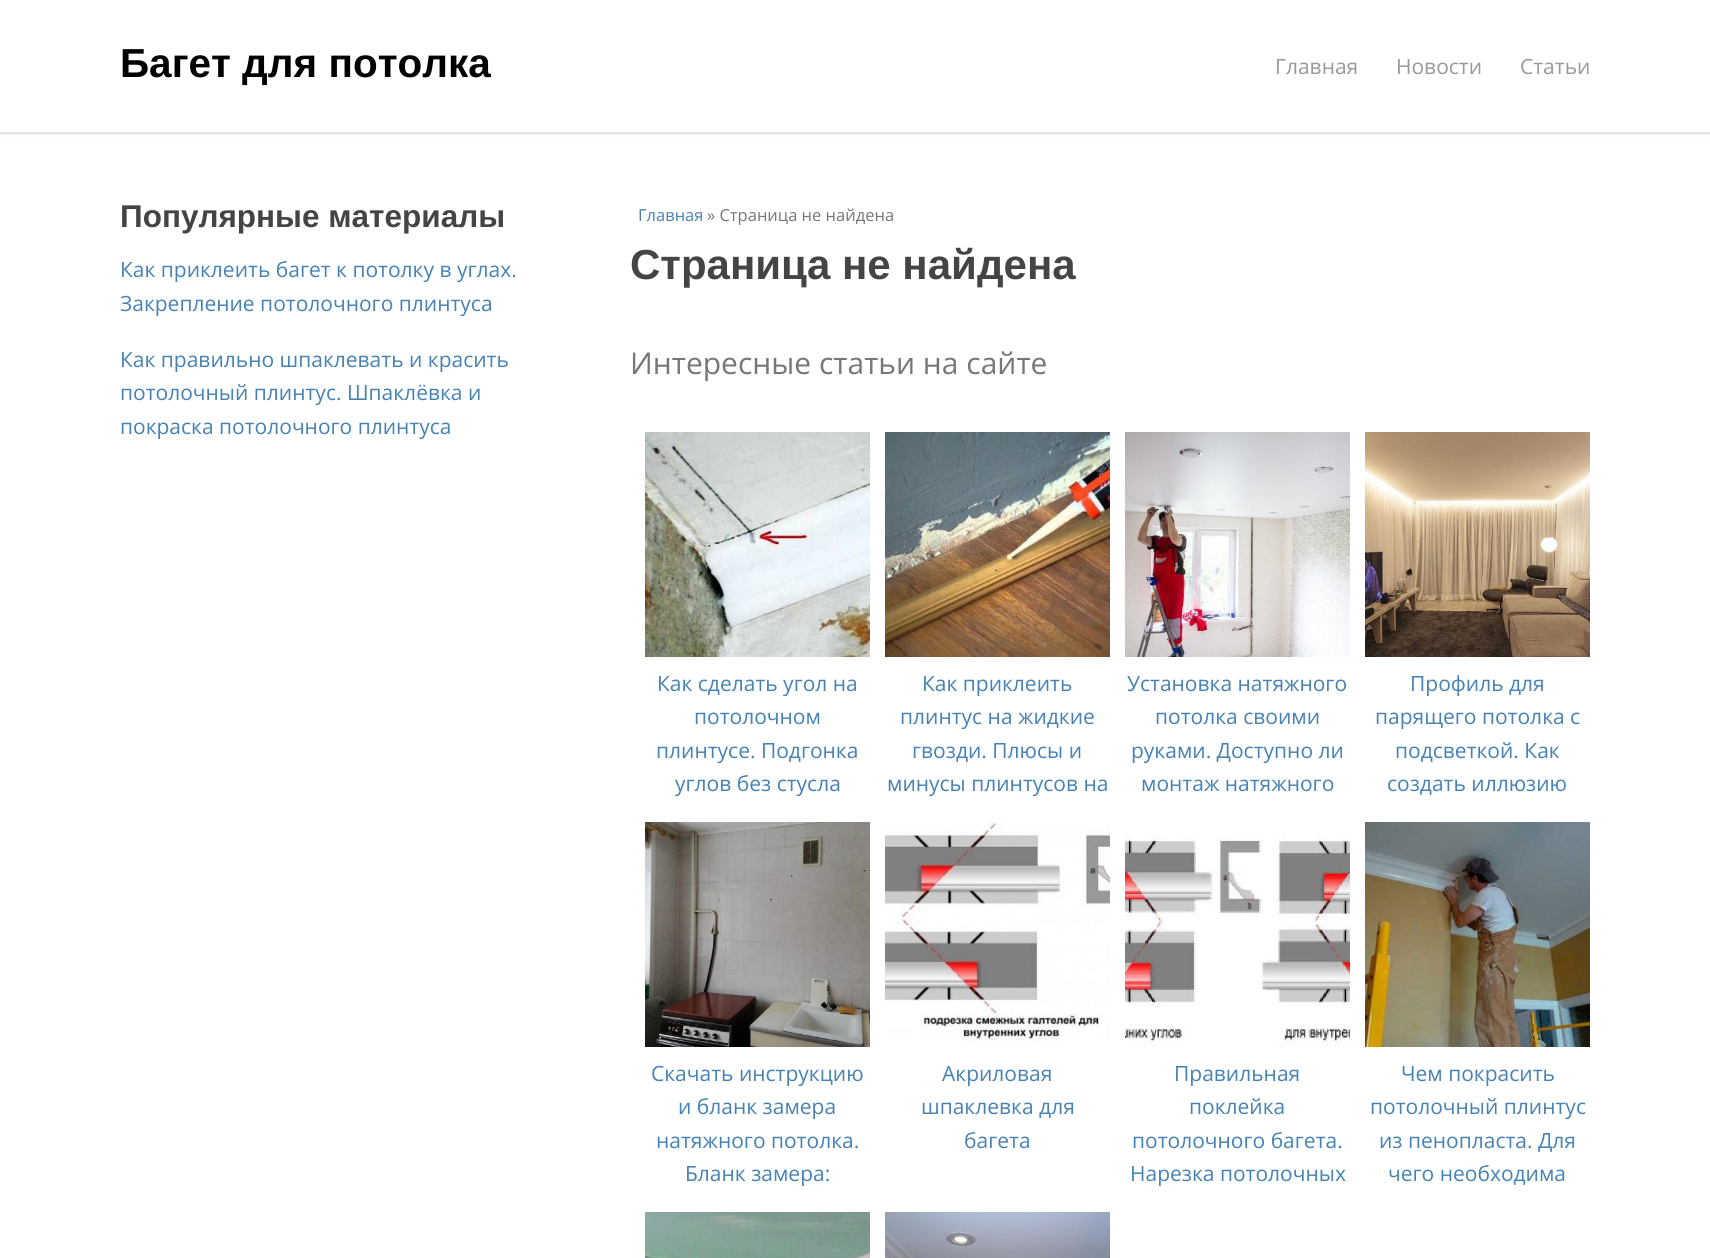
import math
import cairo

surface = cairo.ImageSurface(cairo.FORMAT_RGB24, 1710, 1258)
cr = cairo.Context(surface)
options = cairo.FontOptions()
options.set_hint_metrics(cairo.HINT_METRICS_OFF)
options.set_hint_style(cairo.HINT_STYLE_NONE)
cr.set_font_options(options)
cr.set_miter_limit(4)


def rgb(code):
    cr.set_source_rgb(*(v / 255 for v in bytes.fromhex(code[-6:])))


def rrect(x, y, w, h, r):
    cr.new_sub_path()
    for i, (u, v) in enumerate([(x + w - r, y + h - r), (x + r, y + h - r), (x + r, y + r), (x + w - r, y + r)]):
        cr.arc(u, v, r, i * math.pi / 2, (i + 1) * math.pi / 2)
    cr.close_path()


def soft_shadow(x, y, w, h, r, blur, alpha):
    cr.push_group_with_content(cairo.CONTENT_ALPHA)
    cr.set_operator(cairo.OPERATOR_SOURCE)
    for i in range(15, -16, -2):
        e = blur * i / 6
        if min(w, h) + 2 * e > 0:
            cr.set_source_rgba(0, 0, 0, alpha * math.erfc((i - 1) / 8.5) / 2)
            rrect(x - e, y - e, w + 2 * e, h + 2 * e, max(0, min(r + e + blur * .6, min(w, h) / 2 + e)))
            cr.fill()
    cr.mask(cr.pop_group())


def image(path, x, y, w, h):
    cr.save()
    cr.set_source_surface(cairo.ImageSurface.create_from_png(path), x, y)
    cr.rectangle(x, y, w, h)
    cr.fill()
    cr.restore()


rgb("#ffffff")
cr.paint()
rgb("#000000")
soft_shadow(0, 0, 1710, 134, 0, 2, 0.1)
rgb("#ffffff")
cr.rectangle(0, 0, 1710, 132)
cr.fill()
rgb("#e4e4e4")
cr.rectangle(0, 132, 1710, 2)
cr.fill()
image("img/1.png", 645, 432, 225, 225)
image("img/2.png", 885, 432, 225, 225)
image("img/3.png", 1125, 432, 225, 225)
image("img/4.png", 1365, 432, 225, 225)
image("img/5.png", 645, 822, 225, 225)
image("img/6.png", 885, 822, 225, 219)
image("img/7.png", 1125, 833, 225, 214)
image("img/8.png", 1365, 822, 225, 225)
image("img/9.png", 645, 1212, 225, 46)
image("img/10.png", 885, 1212, 225, 46)
cr.select_font_face("Liberation Sans", cairo.FONT_SLANT_NORMAL, cairo.FONT_WEIGHT_BOLD)
cr.set_font_size(40.5)
rgb("#000000")
cr.move_to(120, 77)
cr.show_text("Багет для потолка")
cr.select_font_face("Open Sans")
cr.set_font_size(21)
rgb("#999999")
for x, y, s in [
    (1275, 74, "Главная"),
    (1396, 74, "Новости"),
    (1520, 74, "Статьи"),
]:
    cr.move_to(x, y)
    cr.show_text(s)
cr.select_font_face("Liberation Sans", cairo.FONT_SLANT_NORMAL, cairo.FONT_WEIGHT_BOLD)
cr.set_font_size(31.5)
rgb("#444444")
cr.move_to(120, 227)
cr.show_text("Популярные материалы")
cr.select_font_face("Open Sans")
cr.set_font_size(21)
rgb("#4682b4")
for x, y, s in [
    (120, 277, "Как приклеить багет к потолку в углах."),
    (120, 311, "Закрепление потолочного плинтуса"),
    (120, 367, "Как правильно шпаклевать и красить"),
    (120, 400, "потолочный плинтус. Шпаклёвка и"),
    (120, 434, "покраска потолочного плинтуса"),
]:
    cr.move_to(x, y)
    cr.show_text(s)
cr.set_font_size(16.5)
cr.move_to(638, 221)
cr.show_text("Главная")
rgb("#777777")
cr.move_to(707, 221)
cr.show_text("» Страница не найдена")
cr.select_font_face("Liberation Sans", cairo.FONT_SLANT_NORMAL, cairo.FONT_WEIGHT_BOLD)
cr.set_font_size(42)
rgb("#444444")
cr.move_to(630, 279)
cr.show_text("Страница не найдена")
cr.select_font_face("Open Sans")
cr.set_font_size(30)
rgb("#777777")
cr.move_to(630, 374)
cr.show_text("Интересные статьи на сайте")
cr.set_font_size(21)
rgb("#4682b4")
for x, y, s in [
    (657, 691, "Как сделать угол на"),
    (694, 724, "потолочном"),
    (656, 758, "плинтусе. Подгонка"),
    (675, 791, "углов без стусла"),
    (922, 691, "Как приклеить"),
    (900, 724, "плинтус на жидкие"),
    (912, 758, "гвозди. Плюсы и"),
    (887, 791, "минусы плинтусов на"),
    (1127, 691, "Установка натяжного"),
    (1155, 724, "потолка своими"),
    (1131, 758, "руками. Доступно ли"),
    (1141, 791, "монтаж натяжного"),
    (1410, 691, "Профиль для"),
    (1375, 724, "парящего потолка с"),
    (1395, 758, "подсветкой. Как"),
    (1387, 791, "создать иллюзию"),
    (651, 1081, "Скачать инструкцию"),
    (678, 1114, "и бланк замера"),
    (656, 1148, "натяжного потолка."),
    (685, 1181, "Бланк замера:"),
    (942, 1081, "Акриловая"),
    (921, 1114, "шпаклевка для"),
    (964, 1148, "багета"),
    (1174, 1081, "Правильная"),
    (1189, 1114, "поклейка"),
    (1132, 1148, "потолочного багета."),
    (1130, 1181, "Нарезка потолочных"),
    (1401, 1081, "Чем покрасить"),
    (1370, 1114, "потолочный плинтус"),
    (1379, 1148, "из пенопласта. Для"),
    (1388, 1181, "чего необходима"),
]:
    cr.move_to(x, y)
    cr.show_text(s)
surface.write_to_png("page.png")
